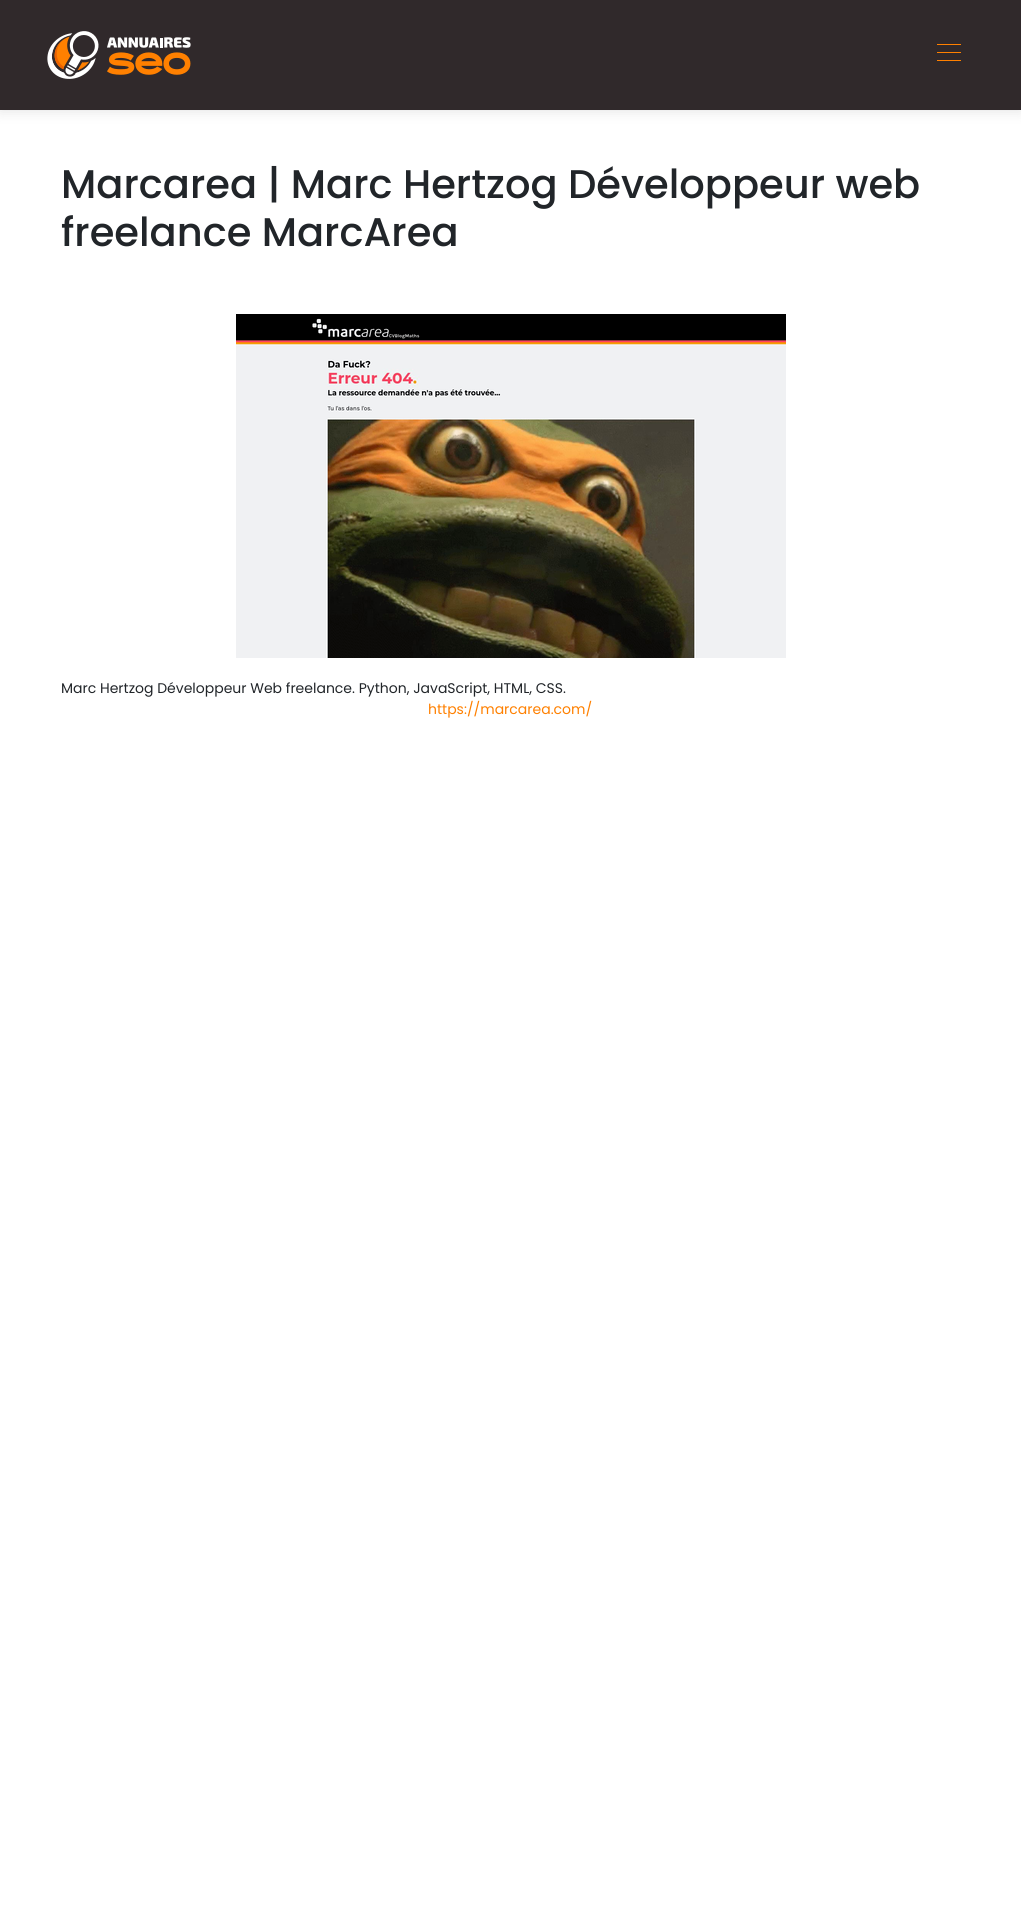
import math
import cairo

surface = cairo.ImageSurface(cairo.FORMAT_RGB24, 1021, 1921)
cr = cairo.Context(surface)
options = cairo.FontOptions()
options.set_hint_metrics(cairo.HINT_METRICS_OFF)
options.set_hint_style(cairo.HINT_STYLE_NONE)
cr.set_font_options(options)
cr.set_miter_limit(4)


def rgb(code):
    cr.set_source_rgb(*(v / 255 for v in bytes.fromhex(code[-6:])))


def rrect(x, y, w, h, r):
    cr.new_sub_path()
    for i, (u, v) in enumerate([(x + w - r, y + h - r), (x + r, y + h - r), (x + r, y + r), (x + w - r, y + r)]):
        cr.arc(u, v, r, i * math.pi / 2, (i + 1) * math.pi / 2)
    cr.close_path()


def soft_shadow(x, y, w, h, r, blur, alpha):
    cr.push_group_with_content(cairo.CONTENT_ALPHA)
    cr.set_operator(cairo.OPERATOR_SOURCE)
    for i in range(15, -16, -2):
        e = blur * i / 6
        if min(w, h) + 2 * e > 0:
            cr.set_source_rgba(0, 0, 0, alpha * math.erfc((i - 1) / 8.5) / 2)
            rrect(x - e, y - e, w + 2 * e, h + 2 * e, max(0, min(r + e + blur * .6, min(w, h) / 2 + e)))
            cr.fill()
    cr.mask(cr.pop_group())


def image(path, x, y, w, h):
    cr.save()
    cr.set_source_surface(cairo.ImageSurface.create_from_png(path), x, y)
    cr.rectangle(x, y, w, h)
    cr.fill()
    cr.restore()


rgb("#ffffff")
cr.paint()
rgb("#000000")
soft_shadow(0, 2, 1021, 110, 0, 6.5, 0.1)
rgb("#30292b")
cr.rectangle(0, 0, 1021, 110)
cr.fill()
image("img/1.png", 47, 31, 144, 48)
for x, y, w, h, color in [
    (937, 44, 24, 1, "#ff8000"),
    (937, 52, 24, 1, "#ff8000"),
    (937, 60, 24, 1, "#ff8000"),
]:
    rgb(color)
    cr.rectangle(x, y, w, h)
    cr.fill()
image("img/2.png", 236, 314, 550, 344)
cr.select_font_face("Poppins Medium")
cr.set_font_size(40)
rgb("#212529")
cr.move_to(61, 198)
cr.show_text("Marcarea | Marc Hertzog Développeur web")
cr.move_to(61, 246)
cr.show_text("freelance MarcArea")
cr.select_font_face("Poppins")
cr.set_font_size(14)
cr.move_to(61, 693)
cr.show_text("Marc Hertzog Développeur Web freelance. Python, JavaScript, HTML, CSS.")
rgb("#ff8000")
cr.move_to(428, 714)
cr.show_text("https://marcarea.com/")
surface.write_to_png("page.png")
